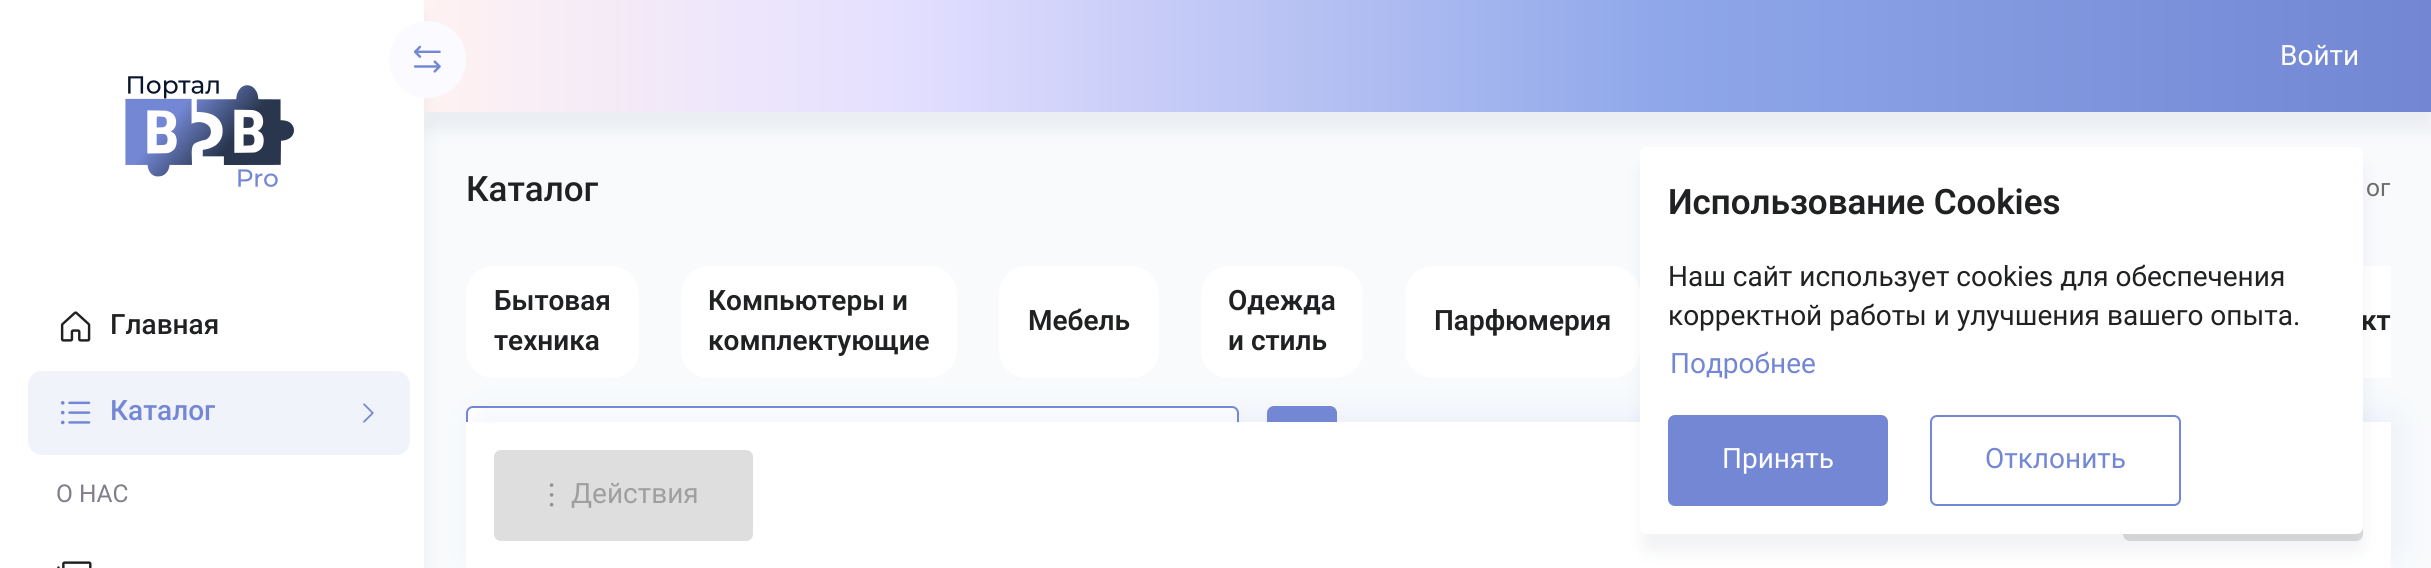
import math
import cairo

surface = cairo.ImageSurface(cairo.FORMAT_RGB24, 2431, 568)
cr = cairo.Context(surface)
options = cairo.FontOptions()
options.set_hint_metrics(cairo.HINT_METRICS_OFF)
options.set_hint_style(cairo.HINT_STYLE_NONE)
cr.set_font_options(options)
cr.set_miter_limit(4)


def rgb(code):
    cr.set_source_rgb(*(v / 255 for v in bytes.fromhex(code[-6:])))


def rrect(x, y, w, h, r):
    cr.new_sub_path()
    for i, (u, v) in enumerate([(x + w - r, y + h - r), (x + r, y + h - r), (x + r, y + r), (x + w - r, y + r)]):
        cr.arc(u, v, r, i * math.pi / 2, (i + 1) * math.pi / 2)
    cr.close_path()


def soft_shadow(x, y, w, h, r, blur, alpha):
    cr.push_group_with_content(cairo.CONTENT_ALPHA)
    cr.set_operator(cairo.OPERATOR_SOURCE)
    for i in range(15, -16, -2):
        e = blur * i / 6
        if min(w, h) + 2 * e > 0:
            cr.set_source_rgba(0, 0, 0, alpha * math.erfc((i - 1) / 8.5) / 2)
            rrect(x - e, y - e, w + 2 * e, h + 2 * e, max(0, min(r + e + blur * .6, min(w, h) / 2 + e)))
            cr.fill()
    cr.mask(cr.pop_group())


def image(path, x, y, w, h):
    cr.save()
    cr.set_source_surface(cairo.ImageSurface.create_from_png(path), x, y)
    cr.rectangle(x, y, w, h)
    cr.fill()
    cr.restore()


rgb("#f8fafc")
cr.paint()
rgb("#3b4467")
soft_shadow(425, 18, 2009, 112, 0, 9, 0.07)
gradient = cairo.LinearGradient(424, 56, 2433, 56)
gradient.add_color_stop_rgba(0, 1, 0.949, 0.949, 1)
gradient.add_color_stop_rgba(0.23, 0.898, 0.878, 1, 1)
gradient.add_color_stop_rgba(0.62, 0.557, 0.655, 0.914, 1)
gradient.add_color_stop_rgba(1, 0.447, 0.525, 0.827, 1)
cr.set_source(gradient)
cr.rectangle(424, 0, 2007, 112)
cr.fill()
rgb("#3b4467")
soft_shadow(2, 18, 423, 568, 0, 9, 0.07)
rgb("#ffffff")
cr.rectangle(0, 0, 424, 568)
cr.fill()
rgb("#fafaff")
cr.arc(427.5, 59.5, 38.5, 0, 2 * math.pi)
cr.fill()
image("img/1.png", 413, 45, 28, 28)
image("img/2.png", 125, 76, 169, 111)
image("img/3.png", 60, 311, 31, 31)
rgb("#f1f3fb")
rrect(28, 371, 382, 84, 14)
cr.fill()
image("img/4.png", 60, 401, 31, 24)
image("img/5.png", 363, 403, 11, 20)
image("img/6.png", 57, 561, 35, 7)
rgb("#ffffff")
rrect(466, 266, 173, 112, 28)
cr.fill()
rrect(681, 266, 276, 112, 28)
cr.fill()
rrect(999, 266, 160, 112, 28)
cr.fill()
rrect(1201, 266, 162, 112, 28)
cr.fill()
rrect(1405, 266, 235, 112, 28)
cr.fill()
cr.rectangle(2363, 266, 28, 112)
cr.fill()
rrect(467, 407, 771, 72, 6)
cr.fill_preserve()
rgb("#7387d4")
cr.stroke()
rrect(1268, 407, 68, 72, 6)
cr.fill_preserve()
cr.stroke()
rgb("#ffffff")
cr.rectangle(2390, 555, 1, 13)
cr.fill()
cr.new_path()
cr.move_to(466, 518)
cr.curve_to(467, 513, 471, 509, 476, 508)
cr.line_to(2380, 508)
cr.curve_to(2386, 510, 2390, 515, 2390, 522)
cr.line_to(2390, 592)
cr.line_to(466, 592)
cr.close_path()
cr.fill()
rgb("#7387d4")
soft_shadow(473, 413, 1925, 147, 14, 14, 0.09)
rgb("#ffffff")
cr.new_path()
cr.move_to(466, 422)
cr.line_to(2391, 422)
cr.line_to(2391, 555)
cr.curve_to(2391, 562.5, 2384.5, 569, 2377, 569)
cr.line_to(480, 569)
cr.curve_to(472.5, 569, 466, 562.5, 466, 555)
cr.close_path()
cr.fill()
rgb("#dedede")
rrect(495, 451, 257, 89, 6)
cr.fill_preserve()
cr.stroke()
image("img/7.png", 549, 483, 5, 24)
rrect(2124, 451, 238, 89, 6)
cr.fill_preserve()
cr.stroke()
rgb("#3b4467")
soft_shadow(1642, 165, 722, 386, 7, 9, 0.07)
cr.select_font_face("Roboto Medium")
cr.set_font_size(28)
rgb("#202122")
cr.move_to(110, 334)
cr.show_text("Главная")
cr.save()
cr.rectangle(110, 392, 105, 39)
cr.clip()
rgb("#7387d4")
cr.move_to(110, 420)
cr.show_text("Каталог")
cr.restore()
cr.select_font_face("Roboto")
cr.set_font_size(24.5)
rgb("#827d8b")
cr.move_to(56, 502)
cr.show_text("О НАС")
cr.set_font_size(28)
rgb("#ffffff")
cr.move_to(2280, 65)
cr.show_text("Войти")
cr.select_font_face("Roboto Medium")
cr.set_font_size(35)
rgb("#202122")
cr.move_to(466, 201)
cr.show_text("Каталог")
cr.select_font_face("Roboto")
cr.set_font_size(24.5)
rgb("#6c6c6c")
cr.move_to(2366, 196)
cr.show_text("ог")
cr.select_font_face("Roboto SemiBold")
cr.set_font_size(28)
rgb("#202122")
for x, y, s in [
    (494, 310, "Бытовая"),
    (494, 350, "техника"),
    (708, 310, "Компьютеры и"),
]:
    cr.move_to(x, y)
    cr.show_text(s)
cr.save()
cr.rectangle(709, 282, 220, 79)
cr.clip()
cr.move_to(708, 350)
cr.show_text("комплектующие")
cr.restore()
for x, y, s in [
    (1028, 330, "Мебель"),
    (1228, 310, "Одежда"),
    (1228, 350, "и стиль"),
    (1434, 330, "Парфюмерия"),
    (2361, 330, "кт"),
]:
    cr.move_to(x, y)
    cr.show_text(s)
cr.select_font_face("Roboto")
rgb("#9f9f9f")
cr.move_to(571, 503)
cr.show_text("Действия")
rgb("#ffffff")
rrect(1640, 147, 723, 387, 7)
cr.fill()
cr.select_font_face("Roboto SemiBold")
cr.set_font_size(35)
rgb("#202122")
cr.move_to(1668, 214)
cr.show_text("Использование Cookies")
cr.select_font_face("Roboto")
cr.set_font_size(28)
cr.move_to(1668, 286)
cr.show_text("Наш сайт использует cookies для обеспечения")
cr.move_to(1668, 325)
cr.show_text("корректной работы и улучшения вашего опыта.")
rgb("#7387d4")
cr.move_to(1670, 373)
cr.show_text("Подробнее")
rrect(1669, 416, 218, 89, 6)
cr.fill_preserve()
cr.stroke()
rgb("#ffffff")
cr.move_to(1722, 468)
cr.show_text("Принять")
rrect(1931, 416, 249, 89, 6)
rgb("#7387d4")
cr.stroke()
cr.move_to(1985, 468)
cr.show_text("Отклонить")
surface.write_to_png("page.png")
